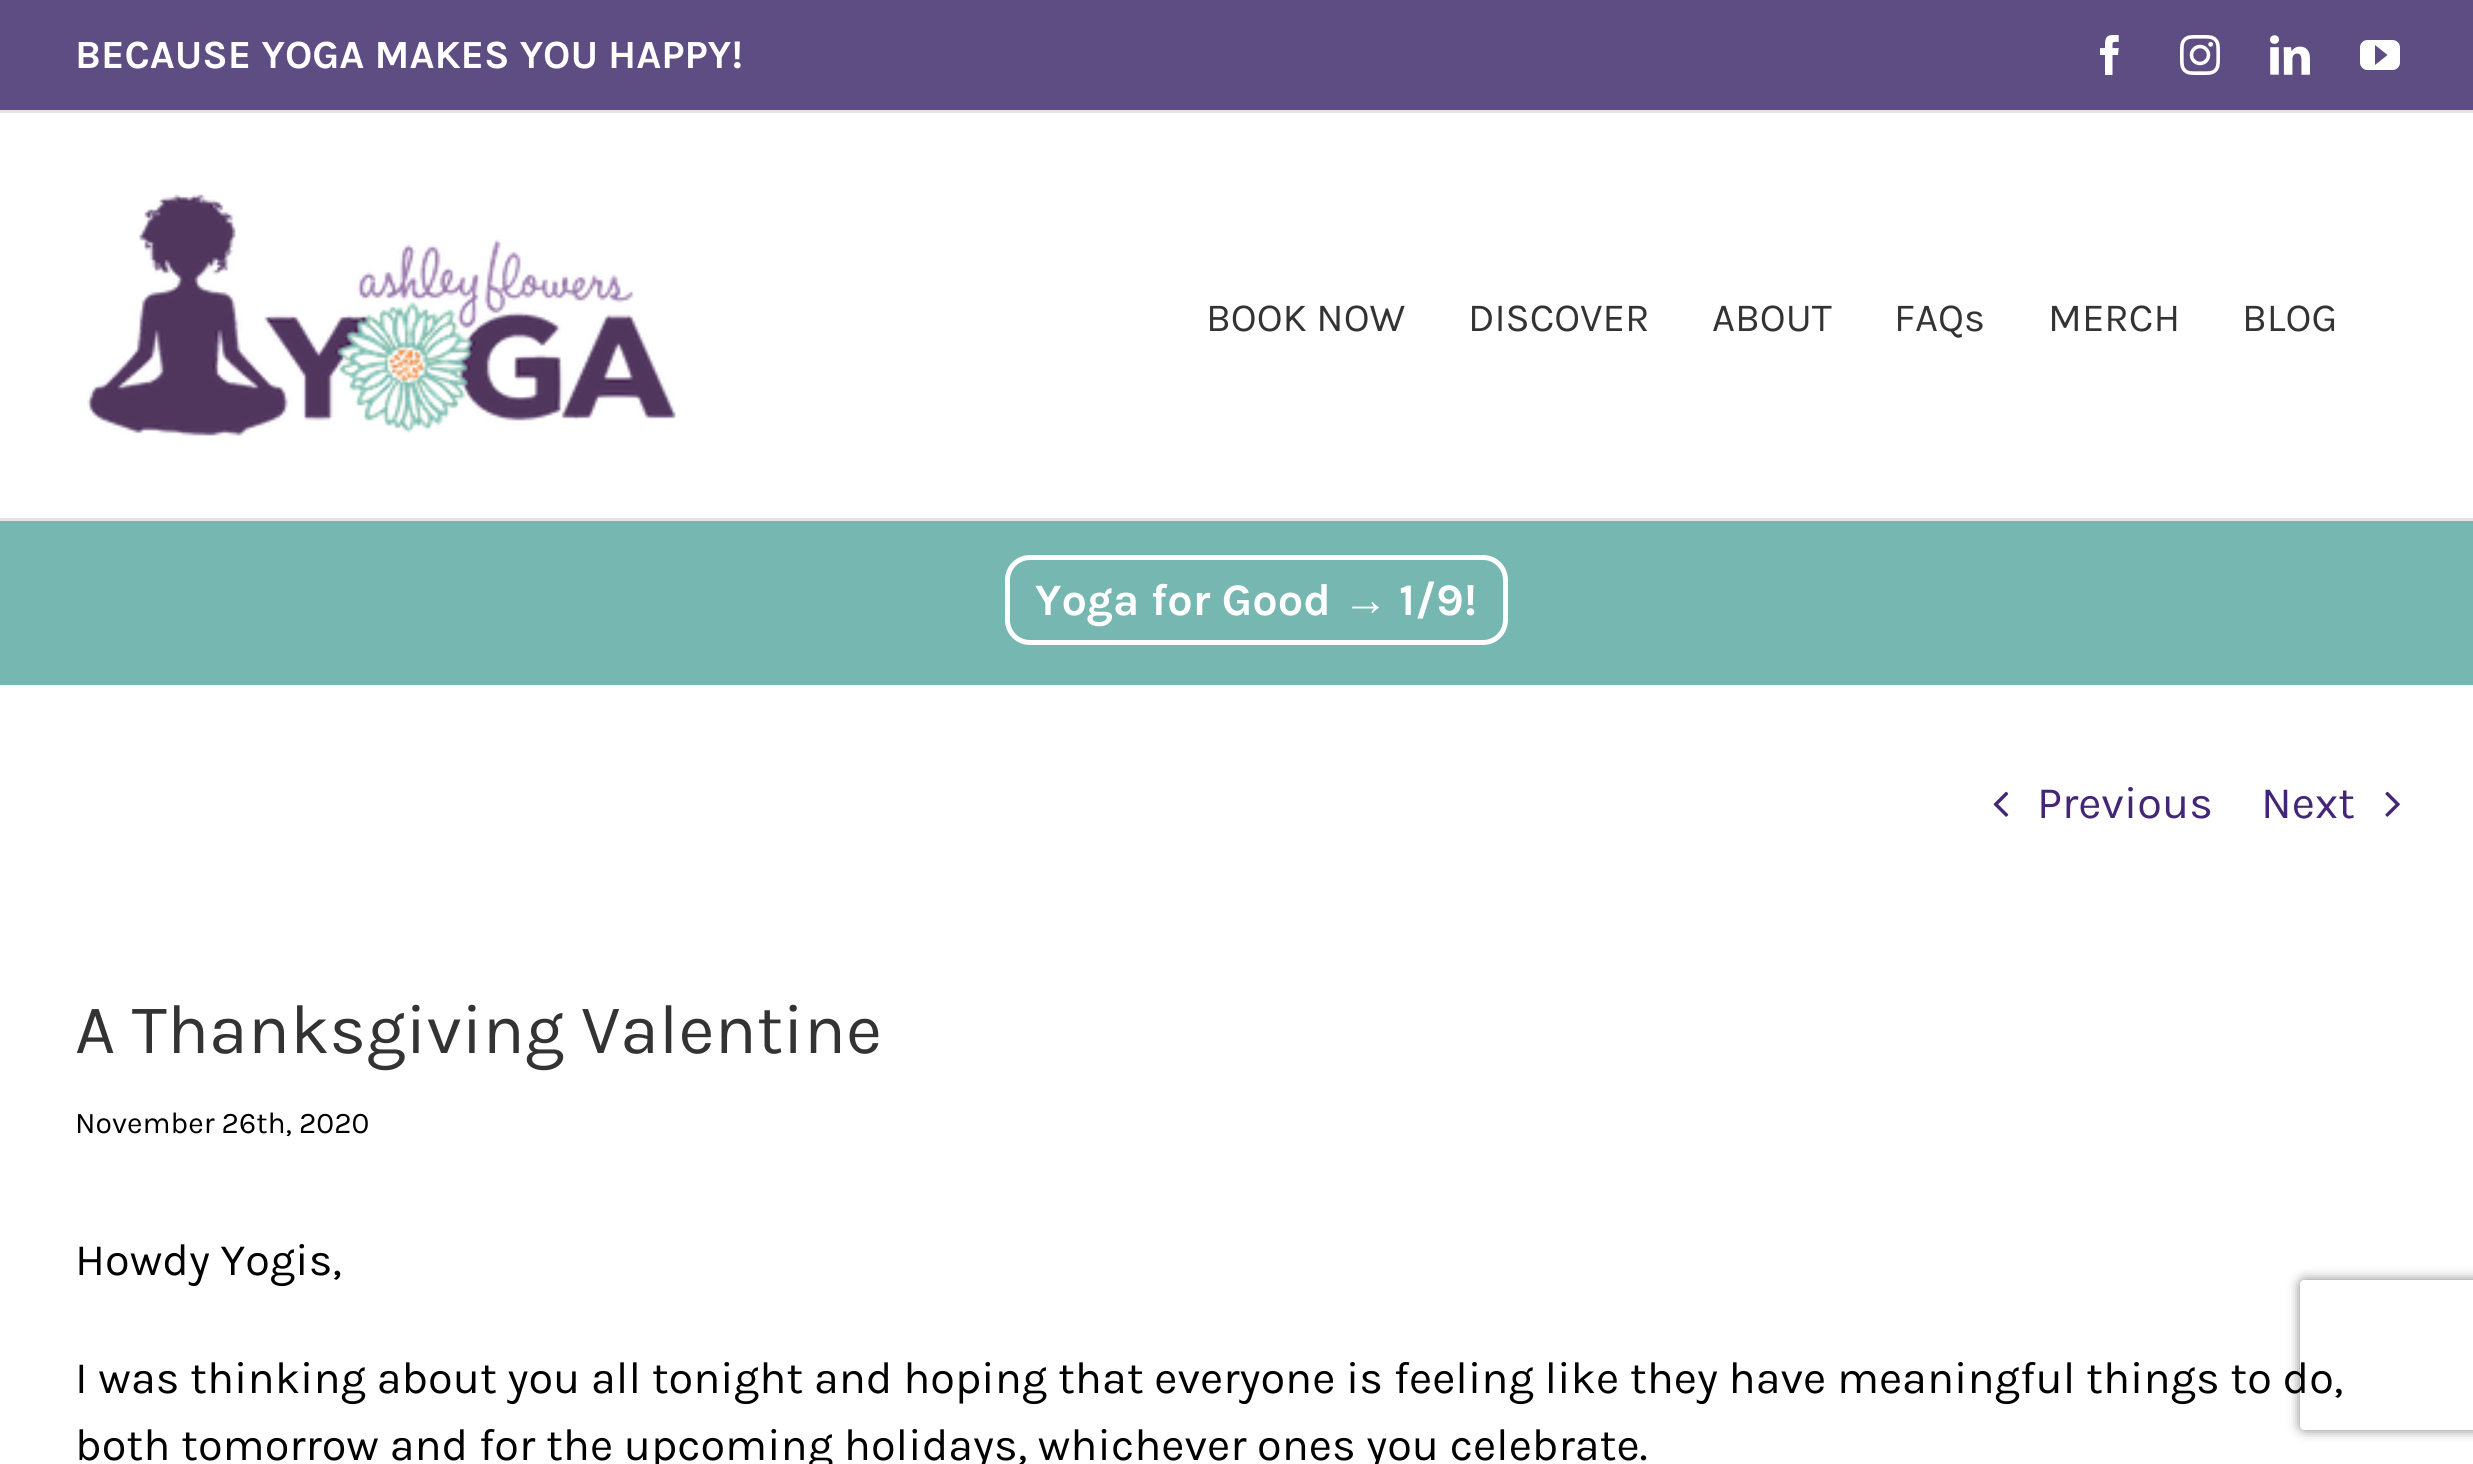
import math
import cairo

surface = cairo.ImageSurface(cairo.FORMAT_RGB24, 2473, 1464)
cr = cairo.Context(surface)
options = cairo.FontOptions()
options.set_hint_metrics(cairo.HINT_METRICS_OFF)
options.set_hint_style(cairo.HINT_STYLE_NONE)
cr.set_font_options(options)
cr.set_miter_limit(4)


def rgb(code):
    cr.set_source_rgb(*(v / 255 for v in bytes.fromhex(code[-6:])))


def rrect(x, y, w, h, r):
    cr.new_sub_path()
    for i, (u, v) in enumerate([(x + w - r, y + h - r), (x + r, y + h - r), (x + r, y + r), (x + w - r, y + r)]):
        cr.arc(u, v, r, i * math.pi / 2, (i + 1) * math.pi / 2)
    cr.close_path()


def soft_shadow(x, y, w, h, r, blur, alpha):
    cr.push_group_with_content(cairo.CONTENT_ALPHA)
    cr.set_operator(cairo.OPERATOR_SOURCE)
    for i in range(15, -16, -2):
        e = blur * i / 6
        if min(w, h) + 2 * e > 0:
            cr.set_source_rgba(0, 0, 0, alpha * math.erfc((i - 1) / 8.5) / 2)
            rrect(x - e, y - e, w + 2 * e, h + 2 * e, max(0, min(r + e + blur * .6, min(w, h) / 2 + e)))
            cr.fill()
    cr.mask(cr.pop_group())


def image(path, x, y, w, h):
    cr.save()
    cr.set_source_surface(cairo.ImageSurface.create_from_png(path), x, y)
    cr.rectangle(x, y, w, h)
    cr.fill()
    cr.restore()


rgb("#ffffff")
cr.paint()
rgb("#5e4d83")
cr.rectangle(0, 0, 2473, 110)
cr.fill()
rgb("#e5e5e5")
cr.rectangle(0, 110, 2473, 3)
cr.fill()
image("img/1.png", 2100, 35, 19, 40)
image("img/2.png", 2180, 35, 40, 40)
image("img/3.png", 2270, 35, 40, 40)
image("img/4.png", 2360, 40, 40, 30)
cr.rectangle(0, 518, 2473, 3)
cr.fill()
image("img/5.png", 87, 194, 589, 242)
rgb("#76b7b1")
cr.rectangle(0, 521, 2473, 164)
cr.fill()
rrect(1007.5, 557.5, 498, 85, 22.5)
rgb("#ffffff")
cr.set_line_width(5)
cr.stroke()
image("img/6.png", 1993, 791, 16, 26)
image("img/7.png", 2385, 791, 15, 26)
cr.save()
cr.set_fill_rule(cairo.FILL_RULE_EVEN_ODD)
cr.new_path()
cr.move_to(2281, 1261)
cr.line_to(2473, 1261)
cr.line_to(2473, 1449)
cr.line_to(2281, 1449)
cr.close_path()
cr.move_to(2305, 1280)
cr.line_to(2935, 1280)
cr.curve_to(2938, 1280, 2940, 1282, 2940, 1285)
cr.line_to(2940, 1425)
cr.curve_to(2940, 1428, 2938, 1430, 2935, 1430)
cr.line_to(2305, 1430)
cr.curve_to(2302, 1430, 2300, 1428, 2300, 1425)
cr.line_to(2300, 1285)
cr.curve_to(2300, 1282, 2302, 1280, 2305, 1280)
cr.close_path()
cr.clip()
rgb("#808080")
soft_shadow(2300, 1280, 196, 150, 5, 6, 1)
cr.restore()
cr.select_font_face("Karla", cairo.FONT_SLANT_NORMAL, cairo.FONT_WEIGHT_BOLD)
cr.set_font_size(40)
cr.move_to(75, 68)
cr.show_text("BECAUSE YOGA MAKES YOU HAPPY!")
cr.select_font_face("Karla")
rgb("#333333")
for x, y, s in [
    (1206, 331, "BOOK NOW"),
    (1468, 331, "DISCOVER"),
    (1712, 331, "ABOUT"),
    (1894, 331, "FAQs"),
    (2048, 331, "MERCH"),
    (2242, 331, "BLOG"),
]:
    cr.move_to(x, y)
    cr.show_text(s)
cr.select_font_face("Karla", cairo.FONT_SLANT_NORMAL, cairo.FONT_WEIGHT_BOLD)
cr.set_font_size(45)
rgb("#ffffff")
cr.move_to(1035, 615)
cr.show_text("Yoga for Good")
cr.select_font_face("Liberation Sans", cairo.FONT_SLANT_NORMAL, cairo.FONT_WEIGHT_BOLD)
cr.move_to(1343, 615)
cr.show_text("→")
cr.select_font_face("Karla", cairo.FONT_SLANT_NORMAL, cairo.FONT_WEIGHT_BOLD)
cr.move_to(1399, 615)
cr.show_text("1/9!")
cr.select_font_face("Karla")
rgb("#432776")
cr.move_to(2037, 818)
cr.show_text("Previous")
cr.move_to(2261, 818)
cr.show_text("Next")
cr.set_font_size(70)
rgb("#333333")
cr.move_to(75, 1053)
cr.show_text("A Thanksgiving Valentine")
cr.set_font_size(30)
rgb("#000000")
cr.move_to(75, 1133)
cr.show_text("November 26th, 2020")
cr.set_font_size(45)
for x, y, s in [
    (75, 1275, "Howdy Yogis,"),
    (75, 1393, "I was thinking about you all tonight and hoping that everyone is feeling like they have meaningful things to do,"),
    (75, 1460, "both tomorrow and for the upcoming holidays, whichever ones you celebrate."),
]:
    cr.move_to(x, y)
    cr.show_text(s)
surface.write_to_png("page.png")
